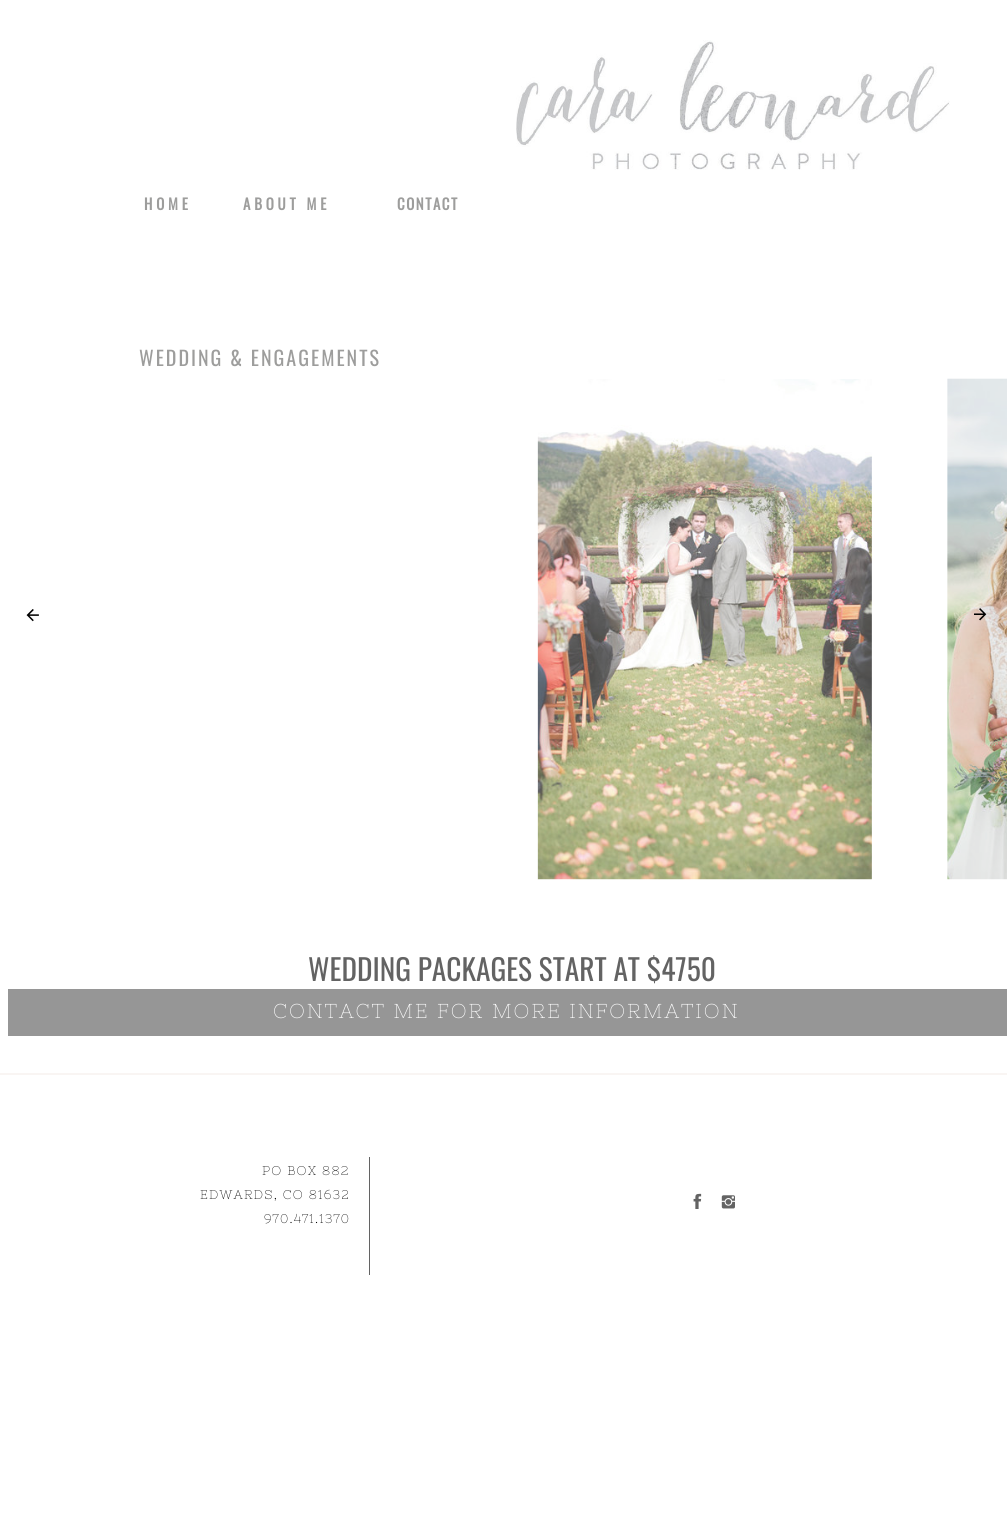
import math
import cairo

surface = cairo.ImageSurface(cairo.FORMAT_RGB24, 1007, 1538)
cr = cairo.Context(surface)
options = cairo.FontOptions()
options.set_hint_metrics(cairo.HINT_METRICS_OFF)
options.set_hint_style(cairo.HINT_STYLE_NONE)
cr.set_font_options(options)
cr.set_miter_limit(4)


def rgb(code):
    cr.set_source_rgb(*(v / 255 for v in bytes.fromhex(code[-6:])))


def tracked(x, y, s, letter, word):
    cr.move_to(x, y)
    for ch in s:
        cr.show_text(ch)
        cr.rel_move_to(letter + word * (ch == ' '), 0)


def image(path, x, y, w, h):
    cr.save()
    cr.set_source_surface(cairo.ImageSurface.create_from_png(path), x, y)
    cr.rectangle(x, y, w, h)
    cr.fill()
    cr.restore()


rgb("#ffffff")
cr.paint()
image("img/1.png", 516, 40, 434, 130)
image("img/2.png", 537, 379, 335, 501)
image("img/3.png", 947, 378, 60, 502)
image("img/4.png", 26, 609, 13, 13)
image("img/5.png", 974, 608, 13, 13)
for x, y, w, h, color in [
    (8, 989, 999, 47, "#969696"),
    (0, 1073, 1007, 2, "#f9f5f3"),
    (369, 1157, 1, 118, "#636363"),
]:
    rgb(color)
    cr.rectangle(x, y, w, h)
    cr.fill()
image("img/6.png", 693, 1193, 9, 16)
image("img/7.png", 721, 1195, 14, 14)
cr.select_font_face("Oswald", cairo.FONT_SLANT_NORMAL, cairo.FONT_WEIGHT_BOLD)
cr.set_font_size(15)
rgb("#9d9d9c")
tracked(144, 210, "HOME", 3.75, 0)
tracked(243, 210, "ABOUT ME", 3.75, 0)
tracked(397, 210, "CONTACT", 1.5, 0)
cr.select_font_face("Oswald")
cr.set_font_size(20.1)
tracked(139, 366, "WEDDING & ENGAGEMENTS", 2, 0)
cr.set_font_size(29.4)
rgb("#636363")
cr.move_to(308, 981)
cr.show_text("WEDDING PACKAGES START AT $4750")
cr.select_font_face("Nixie One")
cr.set_font_size(20.1)
rgb("#ffffff")
tracked(273, 1018, "CONTACT ME FOR MORE INFORMATION", 2, 0)
cr.set_font_size(12.6)
rgb("#000000")
for x, y, s in [
    (262, 1175, "PO BOX 882"),
    (200, 1199, "EDWARDS, CO 81632"),
    (264, 1223, "970.471.1370"),
]:
    tracked(x, y, s, 1.25, 0)
surface.write_to_png("page.png")
